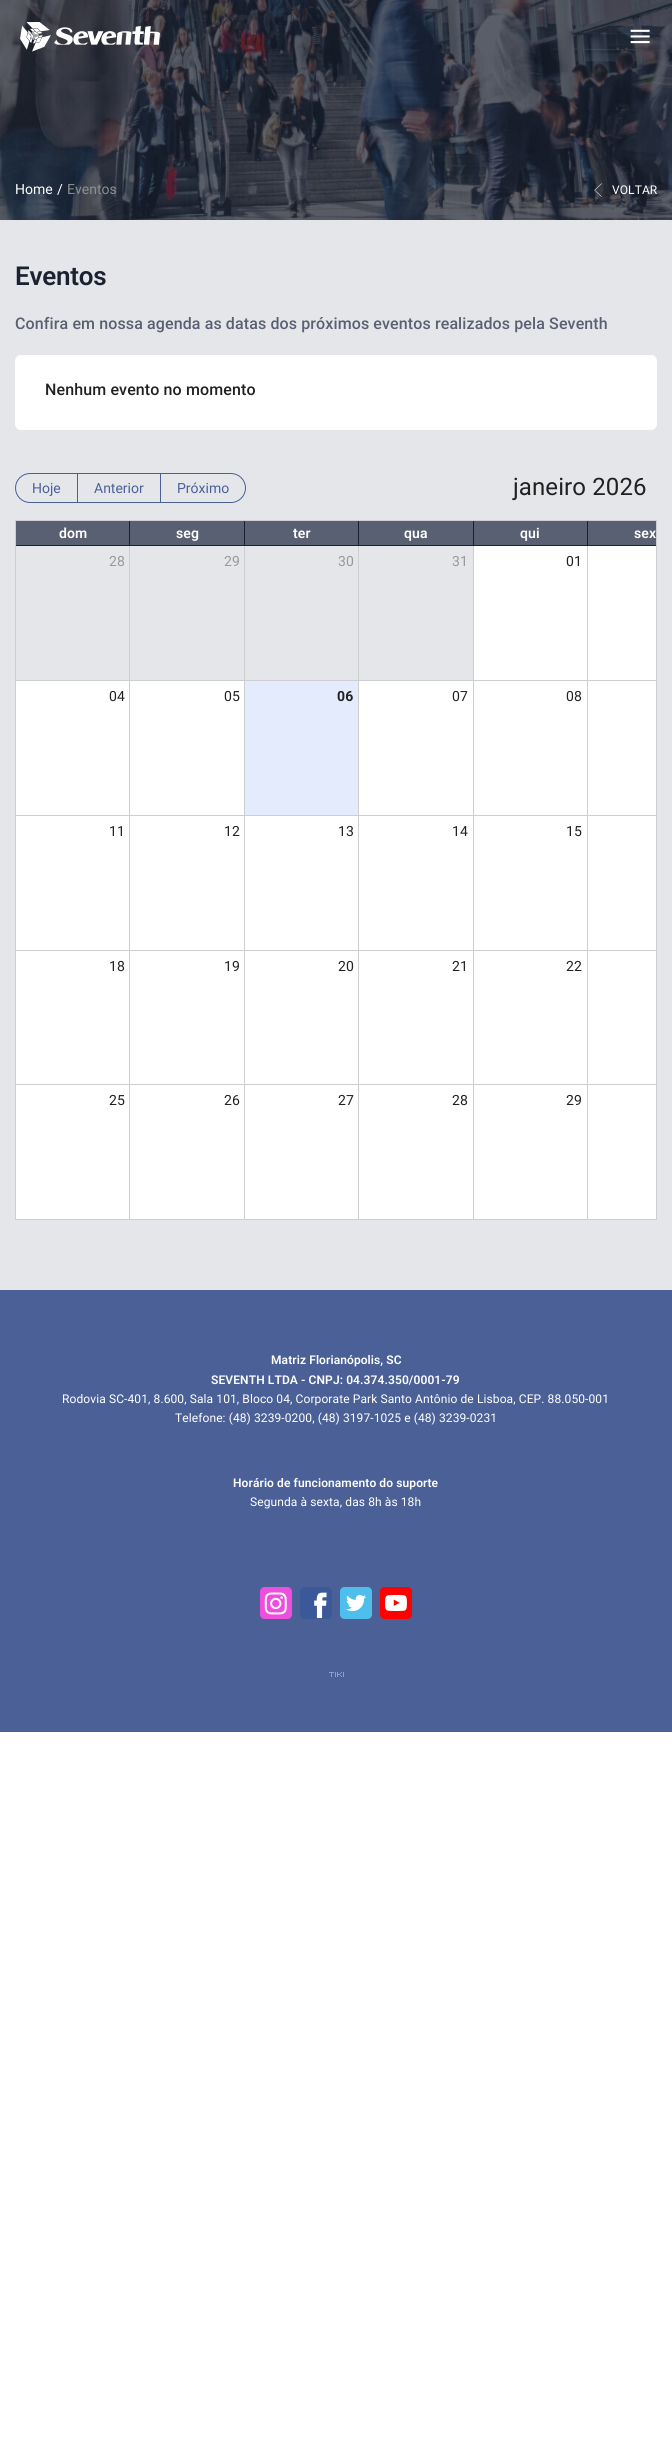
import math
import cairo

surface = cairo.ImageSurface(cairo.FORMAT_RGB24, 672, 2455)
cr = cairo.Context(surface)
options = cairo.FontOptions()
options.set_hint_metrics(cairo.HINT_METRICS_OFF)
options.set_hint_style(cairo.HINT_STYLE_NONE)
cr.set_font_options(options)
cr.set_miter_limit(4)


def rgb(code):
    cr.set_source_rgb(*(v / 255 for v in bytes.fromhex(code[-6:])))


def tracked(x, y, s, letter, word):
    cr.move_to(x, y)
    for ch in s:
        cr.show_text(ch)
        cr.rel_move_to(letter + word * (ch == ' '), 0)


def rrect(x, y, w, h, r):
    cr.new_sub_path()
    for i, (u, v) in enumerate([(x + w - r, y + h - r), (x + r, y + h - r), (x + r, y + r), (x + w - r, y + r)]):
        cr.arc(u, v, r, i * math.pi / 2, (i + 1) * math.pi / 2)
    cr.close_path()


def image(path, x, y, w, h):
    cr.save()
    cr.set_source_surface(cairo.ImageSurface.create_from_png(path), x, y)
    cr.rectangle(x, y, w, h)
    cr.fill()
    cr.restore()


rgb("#ffffff")
cr.paint()
image("img/3.png", 0, 0, 672, 220)
image("img/1.png", 20, 22, 140, 30)
image("img/2.png", 630, 29, 20, 15)
rgb("#e5e6ea")
cr.rectangle(0, 220, 672, 1070)
cr.fill()
image("img/4.png", 594, 183, 8, 14)
rgb("#ffffff")
rrect(15, 355, 642, 75, 6)
cr.fill()
cr.new_path()
cr.move_to(30, 473.5)
cr.line_to(77.5, 473.5)
cr.line_to(77.5, 502.5)
cr.line_to(30, 502.5)
cr.curve_to(22, 502.5, 15.5, 496, 15.5, 488)
cr.curve_to(15.5, 480, 22, 473.5, 30, 473.5)
cr.close_path()
rgb("#4a6097")
cr.set_line_width(1)
cr.stroke()
cr.rectangle(77.5, 473.5, 83, 29)
cr.stroke()
cr.new_path()
cr.move_to(160.5, 473.5)
cr.line_to(231, 473.5)
cr.curve_to(239, 473.5, 245.5, 480, 245.5, 488)
cr.curve_to(245.5, 496, 239, 502.5, 231, 502.5)
cr.line_to(160.5, 502.5)
cr.close_path()
cr.stroke()
cr.rectangle(15.5, 520.5, 641, 699)
rgb("#cdced0")
cr.stroke()
for x, y, w, h, color in [
    (16, 521, 113, 24, "#596072"),
    (16, 545, 640, 1, "#1a2131"),
    (130, 521, 114, 24, "#596072"),
    (129, 521, 1, 25, "#1a2131"),
    (245, 521, 113, 24, "#596072"),
    (244, 521, 1, 25, "#1a2131"),
    (359, 521, 114, 24, "#596072"),
    (358, 521, 1, 25, "#1a2131"),
    (474, 521, 113, 24, "#596072"),
    (473, 521, 1, 25, "#1a2131"),
    (588, 521, 68, 24, "#596072"),
    (587, 521, 1, 25, "#1a2131"),
    (129, 546, 1, 134, "#cdced0"),
    (244, 546, 1, 134, "#cdced0"),
    (358, 546, 1, 134, "#cdced0"),
    (474, 546, 113, 134, "#ffffff"),
    (473, 546, 1, 134, "#cdced0"),
    (588, 546, 68, 134, "#ffffff"),
    (587, 546, 1, 134, "#cdced0"),
    (16, 680, 640, 1, "#cdced0"),
    (16, 681, 113, 134, "#ffffff"),
    (130, 681, 114, 134, "#ffffff"),
    (129, 681, 1, 134, "#cdced0"),
    (245, 681, 113, 134, "#e4ebfd"),
    (244, 681, 1, 134, "#cdced0"),
    (359, 681, 114, 134, "#ffffff"),
    (358, 681, 1, 134, "#cdced0"),
    (474, 681, 113, 134, "#ffffff"),
    (473, 681, 1, 134, "#cdced0"),
    (588, 681, 68, 134, "#ffffff"),
    (587, 681, 1, 134, "#cdced0"),
    (16, 815, 640, 1, "#cdced0"),
    (16, 816, 113, 134, "#ffffff"),
    (130, 816, 114, 134, "#ffffff"),
    (129, 816, 1, 134, "#cdced0"),
    (245, 816, 113, 134, "#ffffff"),
    (244, 816, 1, 134, "#cdced0"),
    (359, 816, 114, 134, "#ffffff"),
    (358, 816, 1, 134, "#cdced0"),
    (474, 816, 113, 134, "#ffffff"),
    (473, 816, 1, 134, "#cdced0"),
    (588, 816, 68, 134, "#ffffff"),
    (587, 816, 1, 134, "#cdced0"),
    (16, 950, 640, 1, "#cdced0"),
    (16, 951, 113, 133, "#ffffff"),
    (130, 951, 114, 133, "#ffffff"),
    (129, 951, 1, 133, "#cdced0"),
    (245, 951, 113, 133, "#ffffff"),
    (244, 951, 1, 133, "#cdced0"),
    (359, 951, 114, 133, "#ffffff"),
    (358, 951, 1, 133, "#cdced0"),
    (474, 951, 113, 133, "#ffffff"),
    (473, 951, 1, 133, "#cdced0"),
    (588, 951, 68, 133, "#ffffff"),
    (587, 951, 1, 133, "#cdced0"),
    (16, 1084, 640, 1, "#cdced0"),
    (16, 1085, 113, 134, "#ffffff"),
    (130, 1085, 114, 134, "#ffffff"),
    (129, 1085, 1, 134, "#cdced0"),
    (245, 1085, 113, 134, "#ffffff"),
    (244, 1085, 1, 134, "#cdced0"),
    (359, 1085, 114, 134, "#ffffff"),
    (358, 1085, 1, 134, "#cdced0"),
    (474, 1085, 113, 134, "#ffffff"),
    (473, 1085, 1, 134, "#cdced0"),
    (588, 1085, 68, 134, "#ffffff"),
    (587, 1085, 1, 134, "#cdced0"),
    (0, 1290, 672, 442, "#4a6097"),
]:
    rgb(color)
    cr.rectangle(x, y, w, h)
    cr.fill()
image("img/5.png", 260, 1587, 32, 32)
image("img/6.png", 264, 1592, 23, 23)
rgb("#ffffff")
rrect(301, 1588, 30, 30, 5)
cr.fill()
image("img/7.png", 300, 1587, 32, 32)
rrect(341, 1588, 30, 30, 5)
cr.fill()
image("img/8.png", 340, 1587, 32, 32)
rrect(381, 1588, 30, 30, 5)
cr.fill()
image("img/9.png", 380, 1587, 32, 32)
image("img/10.png", 329, 1672, 15, 5)
cr.select_font_face("Roboto")
cr.set_font_size(14)
cr.move_to(15, 194)
cr.show_text("Home")
cr.move_to(57, 194)
cr.show_text("/")
rgb("#889090")
cr.move_to(67, 194)
cr.show_text("Eventos")
cr.set_font_size(12)
rgb("#ffffff")
tracked(612, 194, "VOLTAR", 0.1, 0)
cr.select_font_face("Roboto SemiBold")
cr.set_font_size(26)
rgb("#1b2130")
tracked(15, 285, "Eventos", -0.25, 0)
cr.select_font_face("Roboto Medium")
cr.set_font_size(16)
rgb("#596071")
tracked(15, 329, "Confira em nossa agenda as datas dos próximos eventos realizados pela Seventh", 0.12, 0)
rgb("#212121")
tracked(45, 395, "Nenhum evento no momento", 0.12, 0)
cr.select_font_face("Roboto")
cr.set_font_size(14)
rgb("#4a6097")
for x, y, s in [
    (32, 493, "Hoje"),
    (94, 493, "Anterior"),
    (177, 493, "Próximo"),
]:
    cr.move_to(x, y)
    cr.show_text(s)
cr.set_font_size(24)
rgb("#212121")
tracked(513, 495, "janeiro 2026", 0.1, 0)
cr.select_font_face("Roboto SemiBold")
cr.set_font_size(14)
rgb("#ffffff")
for x, y, s in [
    (59, 538, "dom"),
    (176, 538, "seg"),
    (293, 538, "ter"),
    (404, 538, "qua"),
    (520, 538, "qui"),
    (634, 538, "sex"),
]:
    tracked(x, y, s, 0.1, 0)
cr.select_font_face("Roboto")
rgb("#999999")
for x, y, s in [
    (109, 566, "28"),
    (224, 566, "29"),
    (338, 566, "30"),
    (452, 566, "31"),
]:
    tracked(x, y, s, 0.1, 0)
rgb("#212121")
for x, y, s in [
    (566, 566, "01"),
    (109, 701, "04"),
    (224, 701, "05"),
]:
    tracked(x, y, s, 0.1, 0)
cr.select_font_face("Roboto", cairo.FONT_SLANT_NORMAL, cairo.FONT_WEIGHT_BOLD)
tracked(337, 701, "06", 0.1, 0)
cr.select_font_face("Roboto")
for x, y, s in [
    (452, 701, "07"),
    (566, 701, "08"),
    (109, 836, "11"),
    (224, 836, "12"),
    (338, 836, "13"),
    (452, 836, "14"),
    (566, 836, "15"),
    (109, 971, "18"),
    (224, 971, "19"),
    (338, 971, "20"),
    (452, 971, "21"),
    (566, 971, "22"),
    (109, 1105, "25"),
    (224, 1105, "26"),
    (338, 1105, "27"),
    (452, 1105, "28"),
    (566, 1105, "29"),
]:
    tracked(x, y, s, 0.1, 0)
cr.select_font_face("Roboto SemiBold")
cr.set_font_size(12)
rgb("#ffffff")
tracked(271, 1364, "Matriz Florianópolis, SC", 0.1, 0)
tracked(211, 1384, "SEVENTH LTDA - CNPJ: 04.374.350/0001-79", 0.1, 0)
cr.select_font_face("Roboto")
tracked(62, 1403, "Rodovia SC-401, 8.600, Sala 101, Bloco 04, Corporate Park Santo Antônio de Lisboa, CEP. 88.050-001", 0.1, 0)
tracked(175, 1422, "Telefone: (48) 3239-0200, (48) 3197-1025 e (48) 3239-0231", 0.1, 0)
cr.select_font_face("Roboto SemiBold")
tracked(233, 1487, "Horário de funcionamento do suporte", 0.1, 0)
cr.select_font_face("Roboto")
tracked(250, 1506, "Segunda à sexta, das 8h às 18h", 0.1, 0)
surface.write_to_png("page.png")
